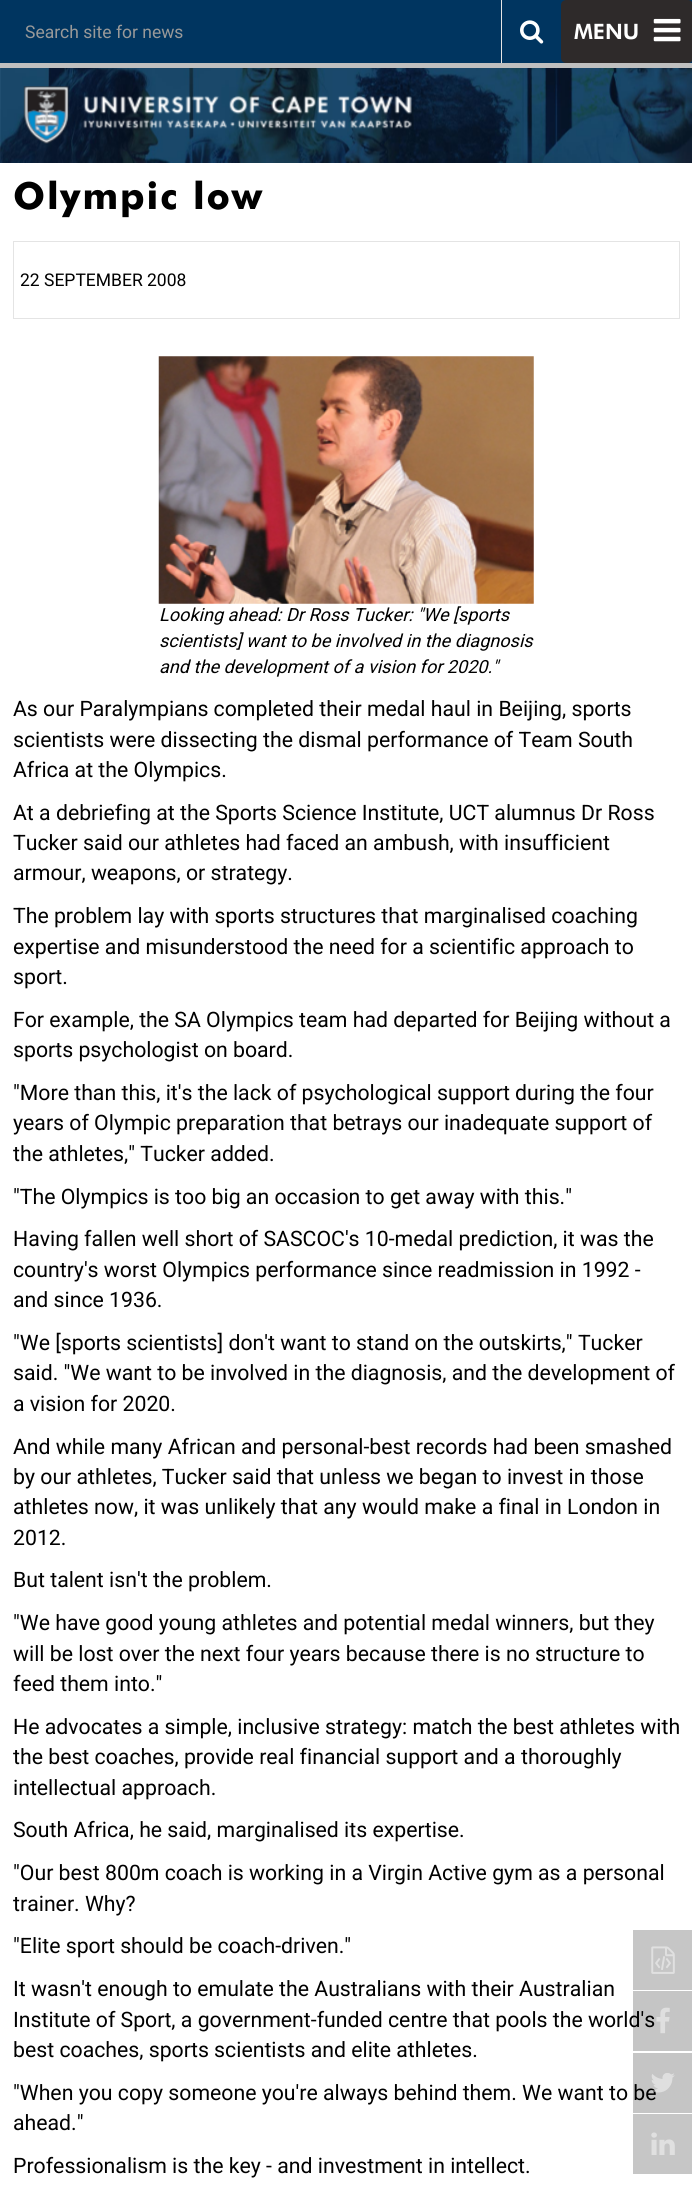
import math
import cairo

surface = cairo.ImageSurface(cairo.FORMAT_RGB24, 692, 2198)
cr = cairo.Context(surface)
options = cairo.FontOptions()
options.set_hint_metrics(cairo.HINT_METRICS_OFF)
options.set_hint_style(cairo.HINT_STYLE_NONE)
cr.set_font_options(options)
cr.set_miter_limit(4)


def rgb(code):
    cr.set_source_rgb(*(v / 255 for v in bytes.fromhex(code[-6:])))


def tracked(x, y, s, letter, word):
    cr.move_to(x, y)
    for ch in s:
        cr.show_text(ch)
        cr.rel_move_to(letter + word * (ch == ' '), 0)


def rrect(x, y, w, h, r):
    cr.new_sub_path()
    for i, (u, v) in enumerate([(x + w - r, y + h - r), (x + r, y + h - r), (x + r, y + r), (x + w - r, y + r)]):
        cr.arc(u, v, r, i * math.pi / 2, (i + 1) * math.pi / 2)
    cr.close_path()


def image(path, x, y, w, h):
    cr.save()
    cr.set_source_surface(cairo.ImageSurface.create_from_png(path), x, y)
    cr.rectangle(x, y, w, h)
    cr.fill()
    cr.restore()


rgb("#ffffff")
cr.paint()
rgb("#003560")
cr.rectangle(0, 0, 692, 63)
cr.fill()
rgb("#e7e5e5")
cr.rectangle(501, 0, 1, 63)
cr.fill()
image("img/1.png", 520, 20, 24, 24)
rgb("#2e2a2a")
rrect(561, 0, 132, 63, 5)
cr.fill()
image("img/2.png", 653, 18, 28, 24)
rgb("#bfbfbf")
cr.rectangle(0, 63, 692, 5)
cr.fill()
image("img/3.png", 0, 68, 692, 95)
image("img/4.png", 23, 86, 389, 58)
cr.rectangle(13.5, 241.5, 666, 77)
rgb("#e4e4e4")
cr.set_line_width(1)
cr.stroke()
image("img/5.png", 158, 356, 376, 248)
rgb("#c6c6c6")
cr.rectangle(633, 1930, 59, 60)
cr.fill()
image("img/6.png", 651, 1946, 24, 28)
cr.rectangle(633, 2114, 59, 60)
cr.fill()
image("img/9.png", 651, 2132, 24, 23)
cr.select_font_face("Roboto")
cr.set_font_size(17.5)
rgb("#999999")
cr.move_to(25, 38)
cr.show_text("Search site for news")
cr.select_font_face("Futura Black")
cr.set_font_size(21.25)
rgb("#ffffff")
cr.move_to(574, 39)
cr.show_text("MENU")
cr.select_font_face("Futura", cairo.FONT_SLANT_NORMAL, cairo.FONT_WEIGHT_BOLD)
cr.set_font_size(37.5)
rgb("#000000")
tracked(13, 209, "Olympic low", 1.9, 0)
cr.select_font_face("Roboto")
cr.set_font_size(17.5)
cr.move_to(20, 286)
cr.show_text("22 SEPTEMBER 2008")
cr.select_font_face("Roboto", cairo.FONT_SLANT_ITALIC)
cr.set_font_size(18.1)
for x, y, s in [
    (159, 621, "Looking ahead: Dr Ross Tucker: \"We [sports"),
    (159, 647, "scientists] want to be involved in the diagnosis"),
    (159, 673, "and the development of a vision for 2020.\""),
]:
    cr.move_to(x, y)
    cr.show_text(s)
cr.select_font_face("Roboto")
cr.set_font_size(21.25)
for x, y, s in [
    (13, 716, "As our Paralympians completed their medal haul in Beijing, sports"),
    (13, 747, "scientists were dissecting the dismal performance of Team South"),
    (13, 777, "Africa at the Olympics."),
    (13, 820, "At a debriefing at the Sports Science Institute, UCT alumnus Dr Ross"),
    (13, 850, "Tucker said our athletes had faced an ambush, with insufficient"),
    (13, 880, "armour, weapons, or strategy."),
    (13, 923, "The problem lay with sports structures that marginalised coaching"),
    (13, 954, "expertise and misunderstood the need for a scientific approach to"),
    (13, 984, "sport."),
    (13, 1027, "For example, the SA Olympics team had departed for Beijing without a"),
    (13, 1057, "sports psychologist on board."),
    (13, 1100, "\"More than this, it's the lack of psychological support during the four"),
    (13, 1130, "years of Olympic preparation that betrays our inadequate support of"),
    (13, 1161, "the athletes,\" Tucker added."),
    (13, 1204, "\"The Olympics is too big an occasion to get away with this.\""),
    (13, 1246, "Having fallen well short of SASCOC's 10-medal prediction, it was the"),
    (13, 1277, "country's worst Olympics performance since readmission in 1992 -"),
    (13, 1307, "and since 1936."),
    (13, 1350, "\"We [sports scientists] don't want to stand on the outskirts,\" Tucker"),
    (13, 1380, "said. \"We want to be involved in the diagnosis, and the development of"),
    (13, 1411, "a vision for 2020."),
    (13, 1454, "And while many African and personal-best records had been smashed"),
    (13, 1484, "by our athletes, Tucker said that unless we began to invest in those"),
    (13, 1514, "athletes now, it was unlikely that any would make a final in London in"),
    (13, 1545, "2012."),
    (13, 1587, "But talent isn't the problem."),
    (13, 1630, "\"We have good young athletes and potential medal winners, but they"),
    (13, 1661, "will be lost over the next four years because there is no structure to"),
    (13, 1691, "feed them into.\""),
    (13, 1734, "He advocates a simple, inclusive strategy: match the best athletes with"),
    (13, 1764, "the best coaches, provide real financial support and a thoroughly"),
    (13, 1795, "intellectual approach."),
    (13, 1837, "South Africa, he said, marginalised its expertise."),
    (13, 1880, "\"Our best 800m coach is working in a Virgin Active gym as a personal"),
    (13, 1911, "trainer. Why?"),
    (13, 1953, "\"Elite sport should be coach-driven.\""),
    (13, 1996, "It wasn't enough to emulate the Australians with their Australian"),
    (13, 2027, "Institute of Sport, a government-funded centre that pools the world's"),
    (13, 2057, "best coaches, sports scientists and elite athletes."),
    (13, 2100, "\"When you copy someone you're always behind them. We want to be"),
    (13, 2130, "ahead.\""),
    (13, 2173, "Professionalism is the key - and investment in intellect."),
]:
    cr.move_to(x, y)
    cr.show_text(s)
cr.set_source_rgba(0, 0, 0, 0.23)
cr.rectangle(633, 1991, 59, 60)
cr.fill()
image("img/7.png", 656, 2007, 14, 27)
cr.rectangle(633, 2053, 59, 60)
cr.fill()
image("img/8.png", 651, 2073, 24, 20)
surface.write_to_png("page.png")
